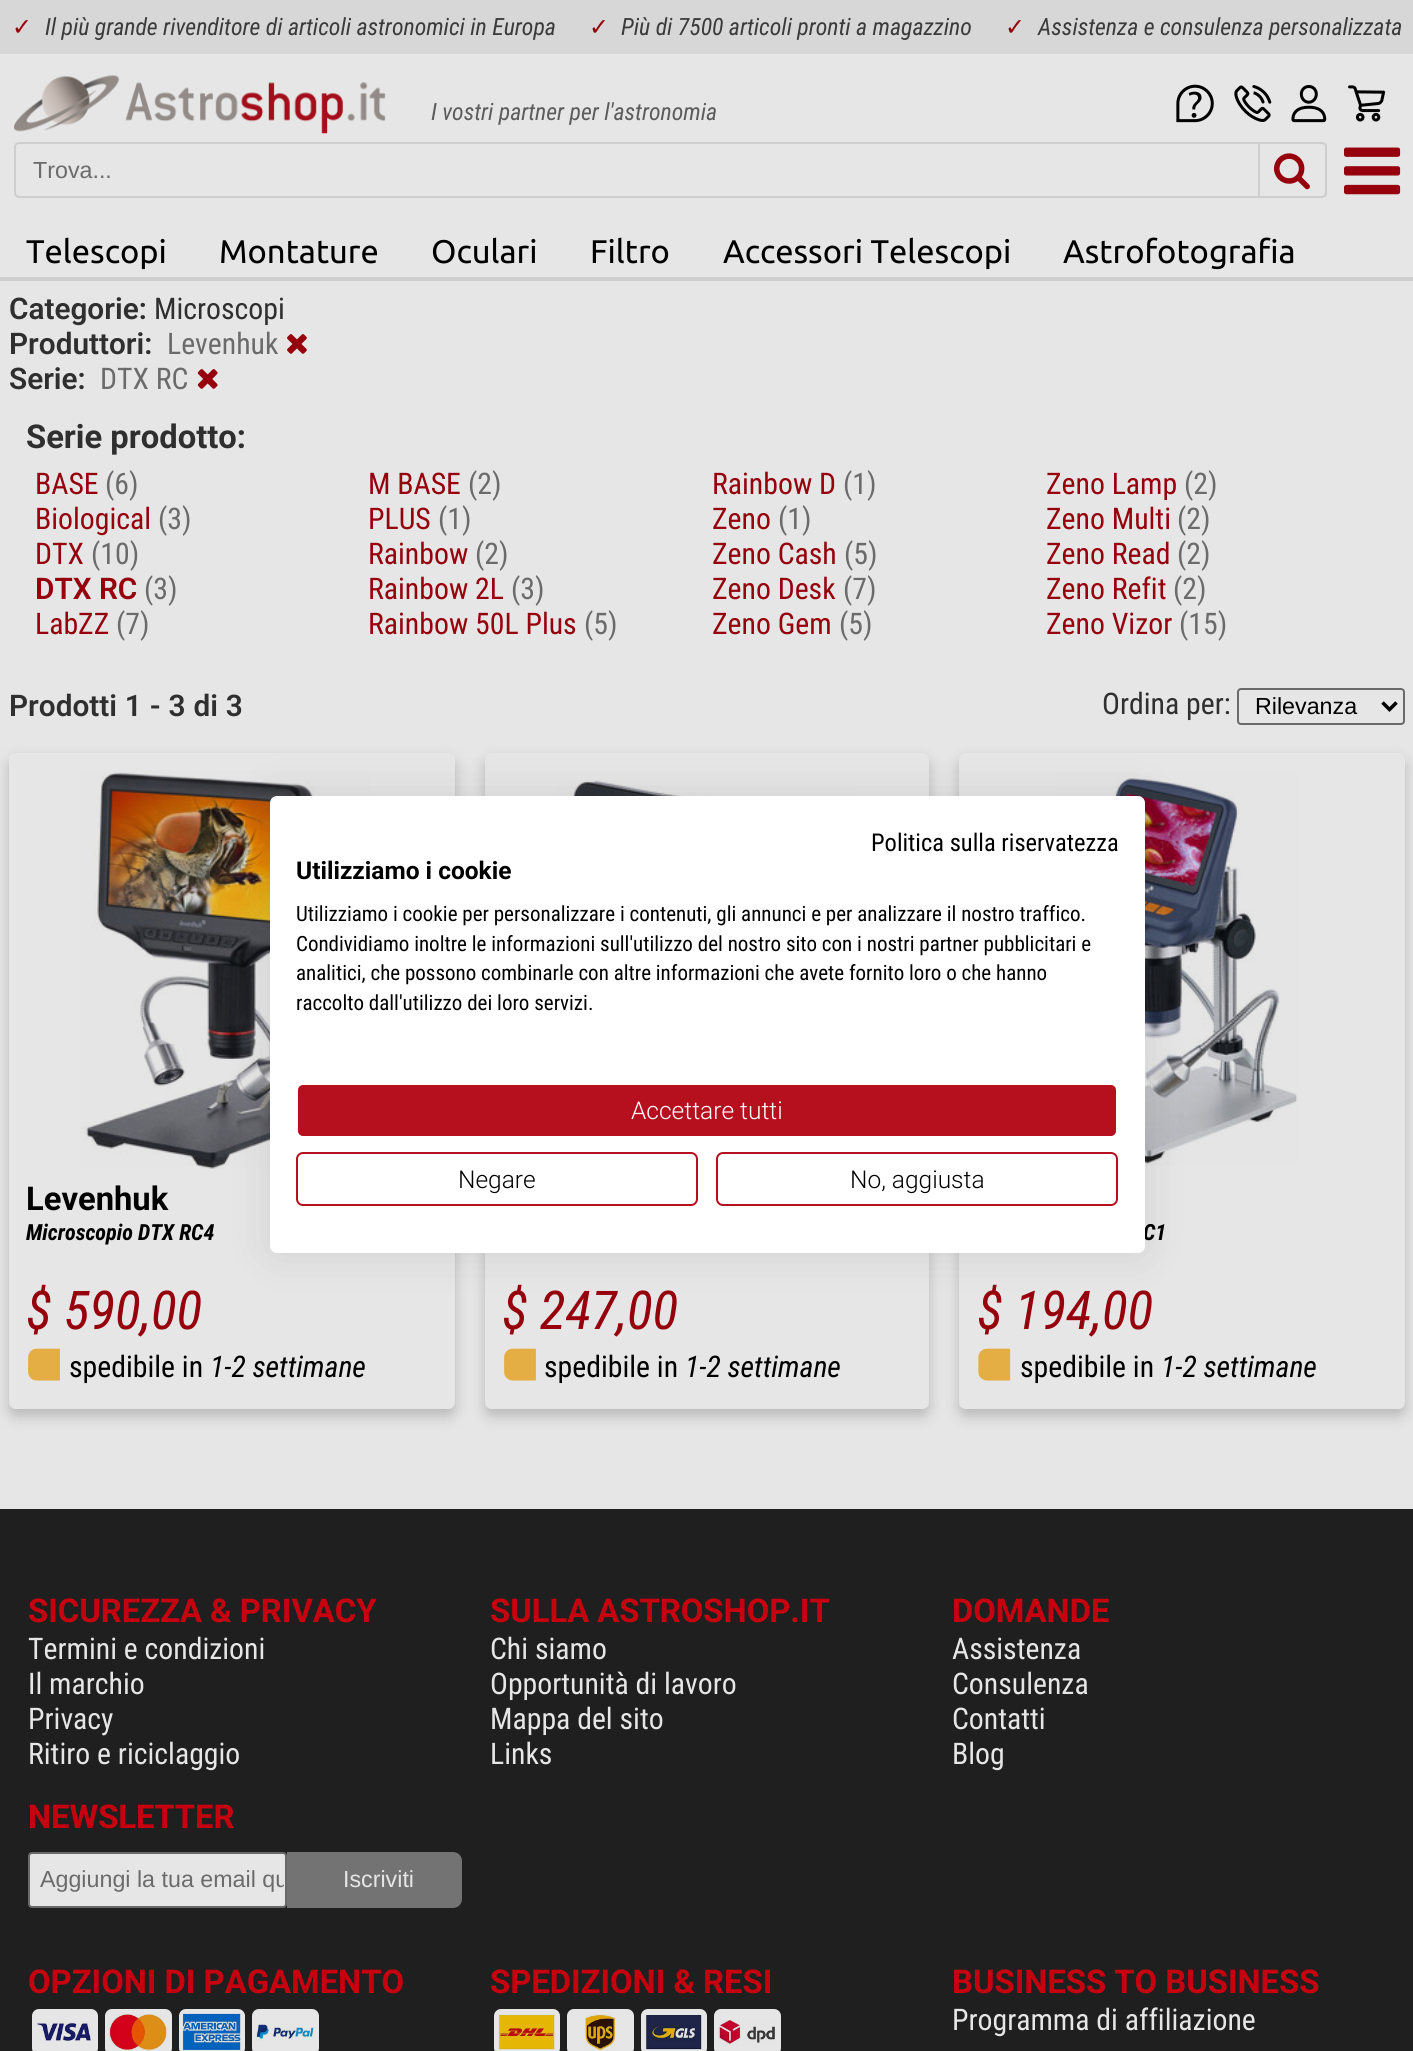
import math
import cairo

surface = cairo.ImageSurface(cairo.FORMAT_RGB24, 1413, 2051)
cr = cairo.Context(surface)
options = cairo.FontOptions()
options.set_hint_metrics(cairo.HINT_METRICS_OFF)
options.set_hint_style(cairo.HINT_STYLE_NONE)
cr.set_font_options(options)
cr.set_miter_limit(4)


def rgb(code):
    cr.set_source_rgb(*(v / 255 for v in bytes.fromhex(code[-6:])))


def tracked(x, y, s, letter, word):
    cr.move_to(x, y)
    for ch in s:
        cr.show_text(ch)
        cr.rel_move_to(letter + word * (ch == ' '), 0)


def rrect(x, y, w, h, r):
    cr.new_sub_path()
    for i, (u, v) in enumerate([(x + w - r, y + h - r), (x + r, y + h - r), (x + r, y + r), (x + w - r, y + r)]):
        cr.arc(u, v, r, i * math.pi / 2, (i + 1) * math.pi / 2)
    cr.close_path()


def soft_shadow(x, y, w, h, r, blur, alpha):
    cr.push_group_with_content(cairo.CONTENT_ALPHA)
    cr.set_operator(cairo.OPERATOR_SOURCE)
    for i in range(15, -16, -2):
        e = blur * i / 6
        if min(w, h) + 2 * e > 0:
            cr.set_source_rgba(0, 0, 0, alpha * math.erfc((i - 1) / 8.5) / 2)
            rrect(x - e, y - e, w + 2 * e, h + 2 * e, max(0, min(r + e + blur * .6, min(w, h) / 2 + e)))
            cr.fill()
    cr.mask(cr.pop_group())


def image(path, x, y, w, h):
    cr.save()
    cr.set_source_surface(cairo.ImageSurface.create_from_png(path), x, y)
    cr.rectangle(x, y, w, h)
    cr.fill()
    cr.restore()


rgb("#e6e6e6")
cr.paint()
rgb("#d7d7d7")
cr.rectangle(0, 0, 1413, 54)
cr.fill()
image("img/1.png", 14, 75, 372, 59)
image("img/2.png", 1176, 84, 38, 39)
image("img/3.png", 1234, 85, 38, 37)
image("img/4.png", 1291, 85, 36, 38)
image("img/5.png", 1348, 85, 38, 37)
rrect(15, 143, 1311, 54, 4)
rgb("#cecece")
cr.stroke()
rgb("#e6e6e6")
cr.new_path()
cr.move_to(1259, 143)
cr.line_to(1322, 143)
cr.curve_to(1324, 143, 1326, 145, 1326, 147)
cr.line_to(1326, 193)
cr.curve_to(1326, 195, 1324, 197, 1322, 197)
cr.line_to(1259, 197)
cr.close_path()
cr.fill_preserve()
rgb("#cecece")
cr.stroke()
image("img/6.png", 1274, 153, 36, 37)
image("img/7.png", 1344, 147, 57, 48)
cr.rectangle(0, 277, 1413, 4)
cr.fill()
image("img/8.png", 287, 334, 20, 20)
image("img/9.png", 197, 369, 21, 20)
rrect(1238, 689, 166, 35, 3)
rgb("#6a6a6a")
cr.stroke()
cr.new_path()
cr.move_to(1382.5, 702.5)
cr.line_to(1389.5, 709.5)
cr.line_to(1396.5, 702.5)
rgb("#000000")
cr.set_line_width(3.5)
cr.stroke()
cr.save()
cr.set_fill_rule(cairo.FILL_RULE_EVEN_ODD)
cr.new_path()
cr.move_to(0, 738)
cr.line_to(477, 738)
cr.line_to(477, 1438)
cr.line_to(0, 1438)
cr.close_path()
cr.move_to(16, 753)
cr.line_to(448, 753)
cr.curve_to(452, 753, 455, 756, 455, 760)
cr.line_to(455, 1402)
cr.curve_to(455, 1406, 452, 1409, 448, 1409)
cr.line_to(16, 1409)
cr.curve_to(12, 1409, 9, 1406, 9, 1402)
cr.line_to(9, 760)
cr.curve_to(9, 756, 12, 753, 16, 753)
cr.close_path()
cr.clip()
rgb("#000000")
soft_shadow(9, 760, 446, 656, 7, 7, 0.2)
cr.restore()
image("img/10.png", 80, 770, 290, 399)
image("img/11.png", 28, 1348, 32, 33)
cr.save()
cr.set_fill_rule(cairo.FILL_RULE_EVEN_ODD)
cr.new_path()
cr.move_to(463, 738)
cr.line_to(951, 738)
cr.line_to(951, 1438)
cr.line_to(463, 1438)
cr.close_path()
cr.move_to(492, 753)
cr.line_to(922, 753)
cr.curve_to(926, 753, 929, 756, 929, 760)
cr.line_to(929, 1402)
cr.curve_to(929, 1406, 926, 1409, 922, 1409)
cr.line_to(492, 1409)
cr.curve_to(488, 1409, 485, 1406, 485, 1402)
cr.line_to(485, 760)
cr.curve_to(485, 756, 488, 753, 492, 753)
cr.close_path()
cr.clip()
rgb("#000000")
soft_shadow(485, 760, 444, 656, 7, 7, 0.2)
cr.restore()
image("img/12.png", 556, 780, 300, 16)
image("img/11.png", 504, 1348, 32, 33)
cr.save()
cr.set_fill_rule(cairo.FILL_RULE_EVEN_ODD)
cr.new_path()
cr.move_to(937, 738)
cr.line_to(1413, 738)
cr.line_to(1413, 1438)
cr.line_to(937, 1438)
cr.close_path()
cr.move_to(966, 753)
cr.line_to(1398, 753)
cr.curve_to(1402, 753, 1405, 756, 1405, 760)
cr.line_to(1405, 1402)
cr.curve_to(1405, 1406, 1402, 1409, 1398, 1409)
cr.line_to(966, 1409)
cr.curve_to(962, 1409, 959, 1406, 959, 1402)
cr.line_to(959, 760)
cr.curve_to(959, 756, 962, 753, 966, 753)
cr.close_path()
cr.clip()
rgb("#000000")
soft_shadow(959, 760, 446, 656, 7, 7, 0.2)
cr.restore()
image("img/13.png", 1056, 772, 242, 394)
image("img/14.png", 978, 1348, 33, 33)
rgb("#1f1f1f")
cr.rectangle(0, 1509, 1413, 542)
cr.fill()
rgb("#e6e6e6")
rrect(29, 1853, 257, 54, 3)
cr.fill_preserve()
rgb("#6a6a6a")
cr.set_line_width(2)
cr.stroke()
rgb("#737373")
cr.new_path()
cr.move_to(287, 1852)
cr.line_to(453, 1852)
cr.curve_to(458, 1852, 462, 1856, 462, 1861)
cr.line_to(462, 1899)
cr.curve_to(462, 1904, 458, 1908, 453, 1908)
cr.line_to(287, 1908)
cr.close_path()
cr.fill()
rgb("#e6e6e6")
rrect(32, 2009, 66, 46, 7)
cr.fill()
image("img/15.png", 37, 2022, 55, 19)
rrect(105, 2009, 67, 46, 7)
cr.fill()
image("img/16.png", 109, 2013, 59, 38)
rrect(179, 2009, 66, 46, 7)
cr.fill()
image("img/17.png", 182, 2013, 59, 38)
rrect(252, 2009, 67, 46, 7)
cr.fill()
image("img/18.png", 256, 2024, 59, 17)
rrect(494, 2009, 66, 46, 7)
cr.fill()
image("img/19.png", 497, 2013, 59, 38)
rrect(567, 2009, 67, 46, 7)
cr.fill()
image("img/20.png", 585, 2013, 31, 38)
rrect(641, 2009, 66, 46, 7)
cr.fill()
image("img/21.png", 644, 2015, 59, 35)
rrect(714, 2009, 67, 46, 7)
cr.fill()
image("img/22.png", 718, 2019, 57, 27)
rgb("#000000")
soft_shadow(270, 796, 875, 457, 7, 21, 0.1)
cr.select_font_face("DejaVu Sans")
cr.set_font_size(23.8)
rgb("#95000c")
cr.move_to(12, 35)
cr.show_text("✓")
cr.select_font_face("Roboto Condensed", cairo.FONT_SLANT_ITALIC)
rgb("#3b3b3c")
cr.move_to(45, 35)
cr.show_text("Il più grande rivenditore di articoli astronomici in Europa")
cr.select_font_face("DejaVu Sans")
rgb("#95000c")
cr.move_to(589, 35)
cr.show_text("✓")
cr.select_font_face("Roboto Condensed", cairo.FONT_SLANT_ITALIC)
rgb("#3b3b3c")
cr.move_to(621, 35)
cr.show_text("Più di 7500 articoli pronti a magazzino")
cr.select_font_face("DejaVu Sans")
rgb("#95000c")
cr.move_to(1005, 35)
cr.show_text("✓")
cr.select_font_face("Roboto Condensed", cairo.FONT_SLANT_ITALIC)
rgb("#3b3b3c")
cr.move_to(1038, 35)
cr.show_text("Assistenza e consulenza personalizzata")
rgb("#5c5c5c")
cr.move_to(431, 120)
cr.show_text("I vostri partner per l'astronomia")
cr.select_font_face("Liberation Sans")
cr.set_font_size(23.25)
rgb("#6b6b6b")
cr.move_to(33, 178)
cr.show_text("Trova...")
cr.select_font_face("Ubuntu")
cr.set_font_size(32.75)
rgb("#000000")
for x, y, s in [
    (26, 263, "Telescopi"),
    (219, 263, "Montature"),
    (431, 263, "Oculari"),
    (590, 263, "Filtro"),
    (723, 263, "Accessori Telescopi"),
    (1063, 263, "Astrofotografia"),
]:
    cr.move_to(x, y)
    cr.show_text(s)
cr.select_font_face("Roboto SemiBold")
cr.set_font_size(29.75)
rgb("#2f2f2f")
cr.move_to(9, 319)
cr.show_text("Categorie:")
cr.select_font_face("Roboto Condensed")
cr.move_to(154, 319)
cr.show_text("Microscopi")
cr.select_font_face("Roboto SemiBold")
cr.move_to(9, 354)
cr.show_text("Produttori:")
cr.select_font_face("Roboto Condensed")
rgb("#6b6b6b")
cr.move_to(167, 354)
cr.show_text("Levenhuk")
cr.select_font_face("Roboto SemiBold")
rgb("#2f2f2f")
cr.move_to(9, 389)
cr.show_text("Serie:")
cr.select_font_face("Roboto Condensed")
rgb("#6b6b6b")
cr.move_to(100, 389)
cr.show_text("DTX RC")
cr.select_font_face("Roboto", cairo.FONT_SLANT_NORMAL, cairo.FONT_WEIGHT_BOLD)
cr.set_font_size(32.75)
rgb("#2f2f2f")
cr.move_to(26, 448)
cr.show_text("Serie prodotto:")
cr.select_font_face("Roboto Condensed")
cr.set_font_size(29.75)
rgb("#95000c")
cr.move_to(35, 494)
cr.show_text("BASE")
rgb("#6b6b6b")
cr.move_to(105, 494)
cr.show_text("(6)")
rgb("#95000c")
cr.move_to(35, 529)
cr.show_text("Biological")
rgb("#6b6b6b")
cr.move_to(158, 529)
cr.show_text("(3)")
rgb("#95000c")
cr.move_to(35, 564)
cr.show_text("DTX")
rgb("#6b6b6b")
cr.move_to(91, 564)
cr.show_text("(10)")
cr.select_font_face("Roboto SemiBold")
rgb("#95000c")
cr.move_to(35, 599)
cr.show_text("DTX RC")
cr.select_font_face("Roboto Condensed")
rgb("#6b6b6b")
cr.move_to(144, 599)
cr.show_text("(3)")
rgb("#95000c")
cr.move_to(35, 634)
cr.show_text("LabZZ")
rgb("#6b6b6b")
cr.move_to(116, 634)
cr.show_text("(7)")
rgb("#95000c")
cr.move_to(368, 494)
cr.show_text("M BASE")
rgb("#6b6b6b")
cr.move_to(468, 494)
cr.show_text("(2)")
rgb("#95000c")
cr.move_to(368, 529)
cr.show_text("PLUS")
rgb("#6b6b6b")
cr.move_to(438, 529)
cr.show_text("(1)")
rgb("#95000c")
cr.move_to(368, 564)
cr.show_text("Rainbow")
rgb("#6b6b6b")
cr.move_to(475, 564)
cr.show_text("(2)")
rgb("#95000c")
cr.move_to(368, 599)
cr.show_text("Rainbow 2L")
rgb("#6b6b6b")
cr.move_to(511, 599)
cr.show_text("(3)")
rgb("#95000c")
cr.move_to(368, 634)
cr.show_text("Rainbow 50L Plus")
rgb("#6b6b6b")
cr.move_to(584, 634)
cr.show_text("(5)")
rgb("#95000c")
cr.move_to(712, 494)
cr.show_text("Rainbow D")
rgb("#6b6b6b")
cr.move_to(843, 494)
cr.show_text("(1)")
rgb("#95000c")
cr.move_to(712, 529)
cr.show_text("Zeno")
rgb("#6b6b6b")
cr.move_to(778, 529)
cr.show_text("(1)")
rgb("#95000c")
cr.move_to(712, 564)
cr.show_text("Zeno Cash")
rgb("#6b6b6b")
cr.move_to(844, 564)
cr.show_text("(5)")
rgb("#95000c")
cr.move_to(712, 599)
cr.show_text("Zeno Desk")
rgb("#6b6b6b")
cr.move_to(843, 599)
cr.show_text("(7)")
rgb("#95000c")
cr.move_to(712, 634)
cr.show_text("Zeno Gem")
rgb("#6b6b6b")
cr.move_to(839, 634)
cr.show_text("(5)")
rgb("#95000c")
cr.move_to(1046, 494)
cr.show_text("Zeno Lamp")
rgb("#6b6b6b")
cr.move_to(1184, 494)
cr.show_text("(2)")
rgb("#95000c")
cr.move_to(1046, 529)
cr.show_text("Zeno Multi")
rgb("#6b6b6b")
cr.move_to(1177, 529)
cr.show_text("(2)")
rgb("#95000c")
cr.move_to(1046, 564)
cr.show_text("Zeno Read")
rgb("#6b6b6b")
cr.move_to(1177, 564)
cr.show_text("(2)")
rgb("#95000c")
cr.move_to(1046, 599)
cr.show_text("Zeno Refit")
rgb("#6b6b6b")
cr.move_to(1173, 599)
cr.show_text("(2)")
rgb("#95000c")
cr.move_to(1046, 634)
cr.show_text("Zeno Vizor")
rgb("#6b6b6b")
cr.move_to(1179, 634)
cr.show_text("(15)")
cr.select_font_face("Roboto SemiBold")
rgb("#2f2f2f")
tracked(9, 716, "Prodotti 1 - 3 di 3", 0, 0.5)
cr.select_font_face("Roboto Condensed")
cr.move_to(1102, 714)
cr.show_text("Ordina per:")
cr.select_font_face("Liberation Sans")
cr.set_font_size(23.25)
rgb("#000000")
cr.move_to(1255, 714)
cr.show_text("Rilevanza")
cr.select_font_face("Roboto", cairo.FONT_SLANT_NORMAL, cairo.FONT_WEIGHT_BOLD)
cr.set_font_size(32.75)
cr.move_to(26, 1210)
cr.show_text("Levenhuk")
cr.select_font_face("Roboto Condensed", cairo.FONT_SLANT_ITALIC, cairo.FONT_WEIGHT_BOLD)
cr.set_font_size(22.25)
cr.move_to(26, 1240)
cr.show_text("Microscopio DTX RC4")
cr.select_font_face("Roboto Condensed", cairo.FONT_SLANT_ITALIC)
cr.set_font_size(53.5)
rgb("#95000c")
cr.move_to(26, 1329)
cr.show_text("$ 590,00")
cr.select_font_face("Roboto Condensed")
cr.set_font_size(29.75)
rgb("#000000")
cr.move_to(69, 1377)
cr.show_text("spedibile in")
cr.select_font_face("Roboto Condensed", cairo.FONT_SLANT_ITALIC)
cr.move_to(210, 1377)
cr.show_text("1-2 settimane")
cr.set_font_size(53.5)
rgb("#95000c")
cr.move_to(502, 1329)
cr.show_text("$ 247,00")
cr.select_font_face("Roboto Condensed")
cr.set_font_size(29.75)
rgb("#000000")
cr.move_to(544, 1377)
cr.show_text("spedibile in")
cr.select_font_face("Roboto Condensed", cairo.FONT_SLANT_ITALIC)
cr.move_to(685, 1377)
cr.show_text("1-2 settimane")
cr.select_font_face("Roboto Condensed", cairo.FONT_SLANT_ITALIC, cairo.FONT_WEIGHT_BOLD)
cr.set_font_size(22.25)
cr.move_to(1143, 1240)
cr.show_text("C1")
cr.select_font_face("Roboto Condensed", cairo.FONT_SLANT_ITALIC)
cr.set_font_size(53.5)
rgb("#95000c")
cr.move_to(977, 1329)
cr.show_text("$ 194,00")
cr.select_font_face("Roboto Condensed")
cr.set_font_size(29.75)
rgb("#000000")
cr.move_to(1020, 1377)
cr.show_text("spedibile in")
cr.select_font_face("Roboto Condensed", cairo.FONT_SLANT_ITALIC)
cr.move_to(1161, 1377)
cr.show_text("1-2 settimane")
cr.select_font_face("Roboto", cairo.FONT_SLANT_NORMAL, cairo.FONT_WEIGHT_BOLD)
cr.set_font_size(32.75)
rgb("#c7000f")
cr.move_to(28, 1622)
cr.show_text("SICUREZZA & PRIVACY")
cr.select_font_face("Roboto Condensed")
cr.set_font_size(29.75)
rgb("#e6e6e6")
for x, y, s in [
    (28, 1659, "Termini e condizioni"),
    (28, 1694, "Il marchio"),
    (28, 1729, "Privacy"),
    (28, 1764, "Ritiro e riciclaggio"),
]:
    cr.move_to(x, y)
    cr.show_text(s)
cr.select_font_face("Roboto", cairo.FONT_SLANT_NORMAL, cairo.FONT_WEIGHT_BOLD)
cr.set_font_size(32.75)
rgb("#c7000f")
cr.move_to(490, 1622)
cr.show_text("SULLA ASTROSHOP.IT")
cr.select_font_face("Roboto Condensed")
cr.set_font_size(29.75)
rgb("#e6e6e6")
for x, y, s in [
    (490, 1659, "Chi siamo"),
    (490, 1694, "Opportunità di lavoro"),
    (490, 1729, "Mappa del sito"),
    (490, 1764, "Links"),
]:
    cr.move_to(x, y)
    cr.show_text(s)
cr.select_font_face("Roboto", cairo.FONT_SLANT_NORMAL, cairo.FONT_WEIGHT_BOLD)
cr.set_font_size(32.75)
rgb("#c7000f")
cr.move_to(952, 1622)
cr.show_text("DOMANDE")
cr.select_font_face("Roboto Condensed")
cr.set_font_size(29.75)
rgb("#e6e6e6")
for x, y, s in [
    (952, 1659, "Assistenza"),
    (952, 1694, "Consulenza"),
    (952, 1729, "Contatti"),
    (952, 1764, "Blog"),
]:
    cr.move_to(x, y)
    cr.show_text(s)
cr.select_font_face("Roboto", cairo.FONT_SLANT_NORMAL, cairo.FONT_WEIGHT_BOLD)
cr.set_font_size(32.75)
rgb("#c7000f")
cr.move_to(28, 1828)
cr.show_text("NEWSLETTER")
cr.save()
cr.rectangle(40, 1866, 244, 26)
cr.clip()
cr.select_font_face("Liberation Sans")
cr.set_font_size(23.25)
rgb("#6b6b6b")
cr.move_to(40, 1887)
cr.show_text("Aggiungi la tua email qu")
cr.restore()
cr.select_font_face("Liberation Sans")
cr.set_font_size(23.25)
rgb("#e6e6e6")
cr.move_to(343, 1887)
cr.show_text("Iscriviti")
cr.select_font_face("Roboto", cairo.FONT_SLANT_NORMAL, cairo.FONT_WEIGHT_BOLD)
cr.set_font_size(32.75)
rgb("#c7000f")
for x, y, s in [
    (28, 1993, "OPZIONI DI PAGAMENTO"),
    (490, 1993, "SPEDIZIONI & RESI"),
    (952, 1993, "BUSINESS TO BUSINESS"),
]:
    cr.move_to(x, y)
    cr.show_text(s)
cr.select_font_face("Roboto Condensed")
cr.set_font_size(29.75)
rgb("#e6e6e6")
cr.move_to(952, 2030)
cr.show_text("Programma di affiliazione")
rgb("#ffffff")
rrect(270, 796, 875, 457, 7)
cr.fill()
cr.set_font_size(24.5)
rgb("#000000")
cr.move_to(871, 851)
cr.show_text("Politica sulla riservatezza")
cr.select_font_face("Roboto", cairo.FONT_SLANT_NORMAL, cairo.FONT_WEIGHT_BOLD)
cr.move_to(296, 879)
cr.show_text("Utilizziamo i cookie")
cr.select_font_face("Roboto Condensed")
cr.set_font_size(21)
for x, y, s in [
    (296, 921, "Utilizziamo i cookie per personalizzare i contenuti, gli annunci e per analizzare il nostro traffico."),
    (296, 951, "Condividiamo inoltre le informazioni sull'utilizzo del nostro sito con i nostri partner pubblicitari e"),
    (296, 980, "analitici, che possono combinarle con altre informazioni che avete fornito loro o che hanno"),
    (296, 1010, "raccolto dall'utilizzo dei loro servizi."),
]:
    cr.move_to(x, y)
    cr.show_text(s)
rgb("#b60f1d")
rrect(297, 1084, 820, 53, 6)
cr.fill_preserve()
rgb("#ffffff")
cr.stroke()
cr.select_font_face("Roboto Light")
cr.set_font_size(24.5)
cr.move_to(631, 1119)
cr.show_text("Accettare tutti")
rrect(297, 1153, 400, 52, 6)
rgb("#b60f1d")
cr.stroke()
rgb("#000000")
cr.move_to(458, 1188)
cr.show_text("Negare")
rrect(717, 1153, 400, 52, 6)
rgb("#b60f1d")
cr.stroke()
rgb("#000000")
cr.move_to(850, 1188)
cr.show_text("No, aggiusta")
surface.write_to_png("page.png")
